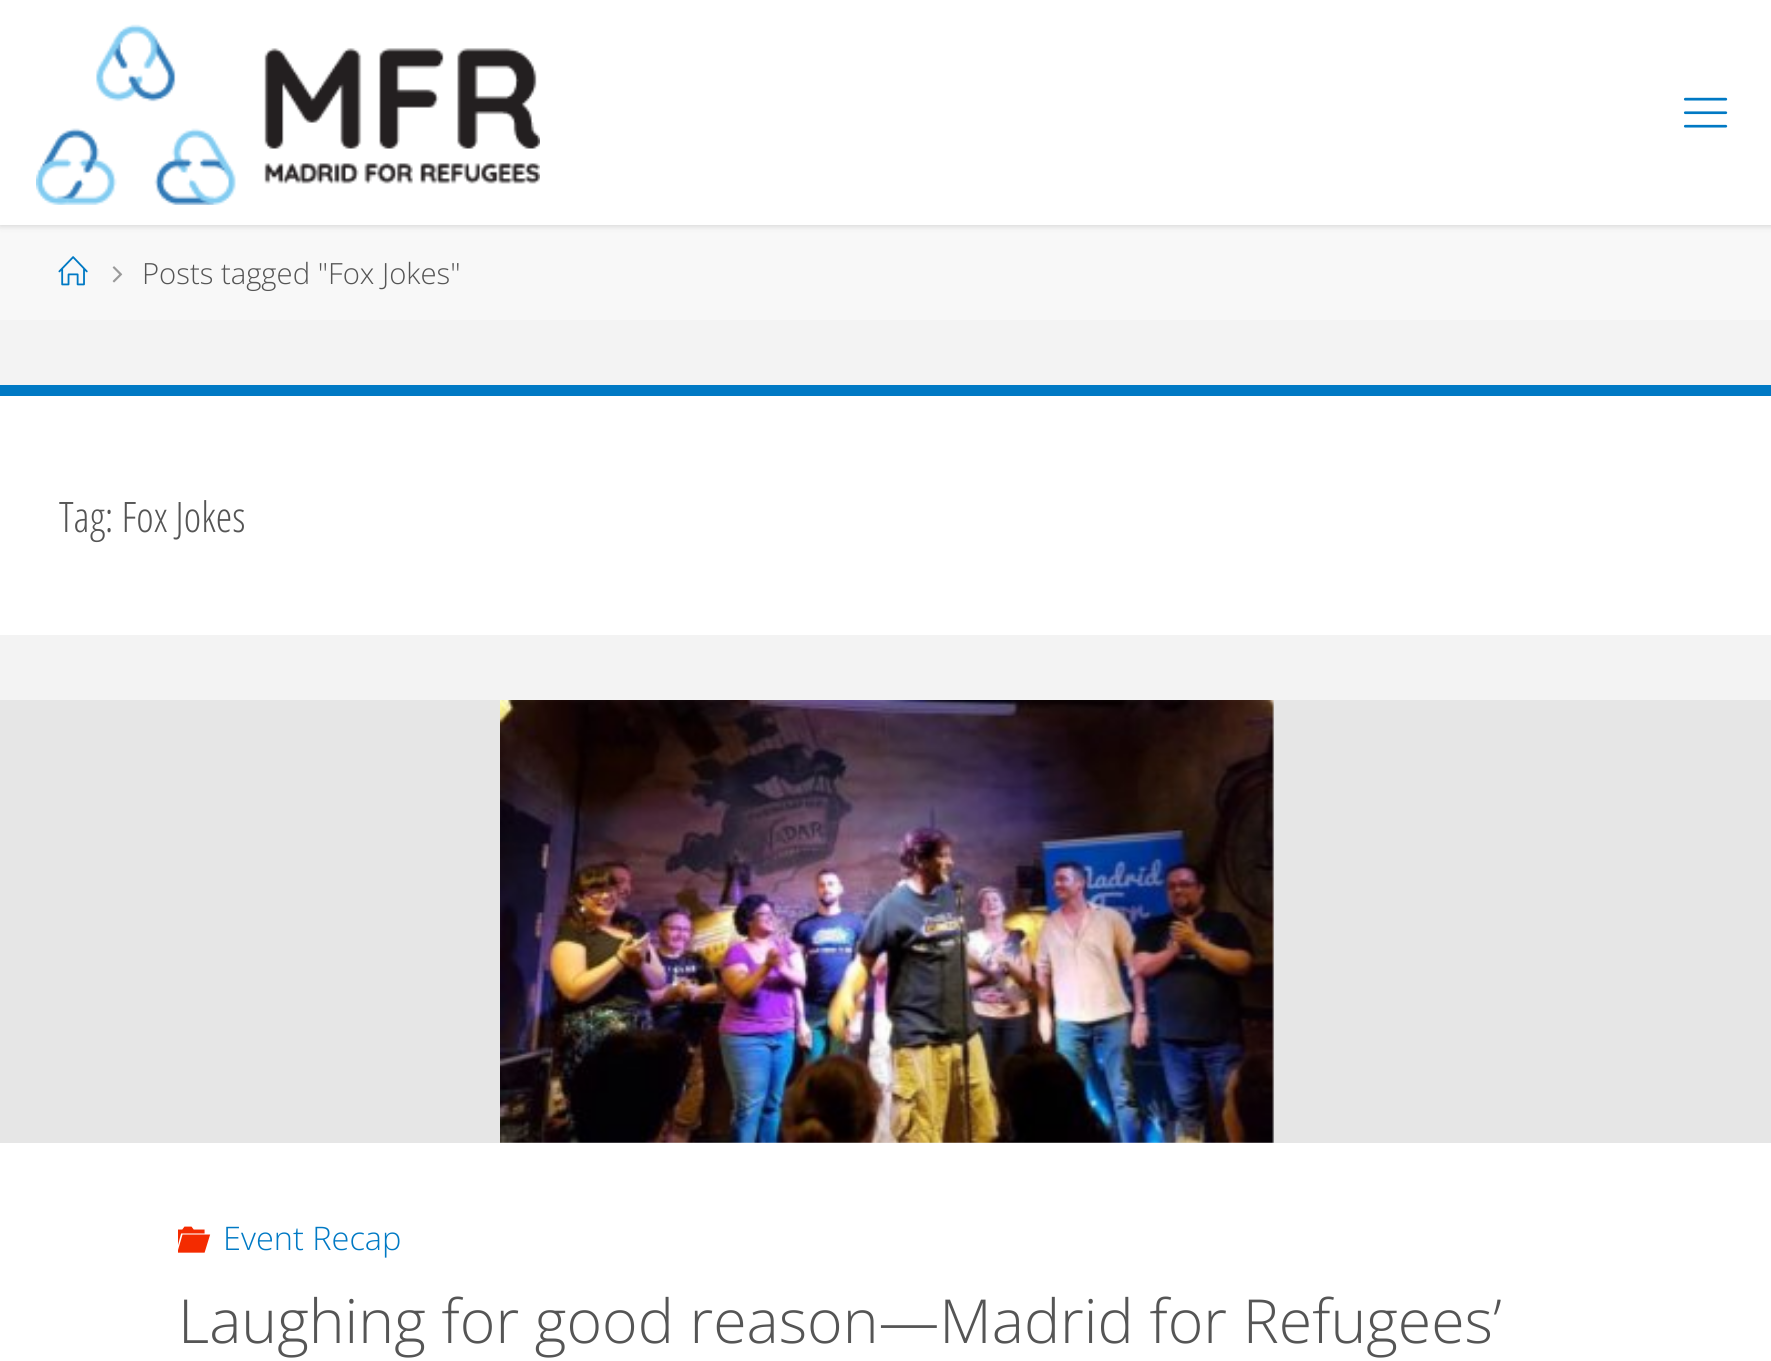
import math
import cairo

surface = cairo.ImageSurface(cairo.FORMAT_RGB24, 1771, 1361)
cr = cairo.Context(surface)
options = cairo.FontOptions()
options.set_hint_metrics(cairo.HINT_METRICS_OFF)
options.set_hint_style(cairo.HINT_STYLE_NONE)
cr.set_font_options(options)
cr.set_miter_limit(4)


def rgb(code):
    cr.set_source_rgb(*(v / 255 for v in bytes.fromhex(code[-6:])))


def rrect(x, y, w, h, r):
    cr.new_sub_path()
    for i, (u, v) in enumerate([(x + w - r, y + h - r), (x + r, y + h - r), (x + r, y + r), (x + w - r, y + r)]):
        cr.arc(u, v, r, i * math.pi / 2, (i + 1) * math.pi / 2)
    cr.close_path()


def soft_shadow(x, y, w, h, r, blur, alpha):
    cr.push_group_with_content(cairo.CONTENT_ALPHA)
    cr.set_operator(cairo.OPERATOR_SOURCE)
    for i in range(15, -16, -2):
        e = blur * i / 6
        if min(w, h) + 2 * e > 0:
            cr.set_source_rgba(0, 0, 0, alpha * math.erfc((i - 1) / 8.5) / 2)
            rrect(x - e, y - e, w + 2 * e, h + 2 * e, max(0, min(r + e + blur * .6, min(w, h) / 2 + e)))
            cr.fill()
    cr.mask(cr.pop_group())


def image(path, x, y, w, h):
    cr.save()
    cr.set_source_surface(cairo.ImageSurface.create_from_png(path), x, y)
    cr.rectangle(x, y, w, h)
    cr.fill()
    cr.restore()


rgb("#f3f3f3")
cr.paint()
rgb("#f8f8f8")
cr.rectangle(0, 225, 1771, 95)
cr.fill()
rgb("#000000")
soft_shadow(0, 0, 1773, 225, 0, 3.5, 0.2)
rgb("#ffffff")
cr.rectangle(0, 0, 1771, 225)
cr.fill()
image("img/1.png", 36, 24, 504, 181)
image("img/2.png", 1683, 97, 45, 31)
image("img/3.png", 58, 256, 30, 30)
image("img/4.png", 112, 266, 11, 17)
for x, y, w, h, color in [
    (0, 396, 1771, 239, "#ffffff"),
    (0, 385, 1771, 11, "#0079c4"),
    (0, 1143, 1771, 218, "#ffffff"),
    (0, 700, 1771, 443, "#e6e6e6"),
]:
    rgb(color)
    cr.rectangle(x, y, w, h)
    cr.fill()
image("img/5.png", 500, 700, 774, 443)
image("img/6.png", 178, 1226, 33, 27)
cr.select_font_face("Open Sans Light")
cr.set_font_size(29.25)
rgb("#555555")
cr.move_to(142, 284)
cr.show_text("Posts tagged \"Fox Jokes\"")
cr.select_font_face("Open Sans Condensed Light")
cr.set_font_size(42)
cr.move_to(59, 532)
cr.show_text("Tag: Fox Jokes")
cr.select_font_face("Open Sans Light")
cr.set_font_size(32.5)
rgb("#0079c4")
cr.move_to(223, 1250)
cr.show_text("Event Recap")
cr.set_font_size(60.75)
rgb("#555555")
cr.move_to(178, 1343)
cr.show_text("Laughing for good reason—Madrid for Refugees’")
surface.write_to_png("page.png")
